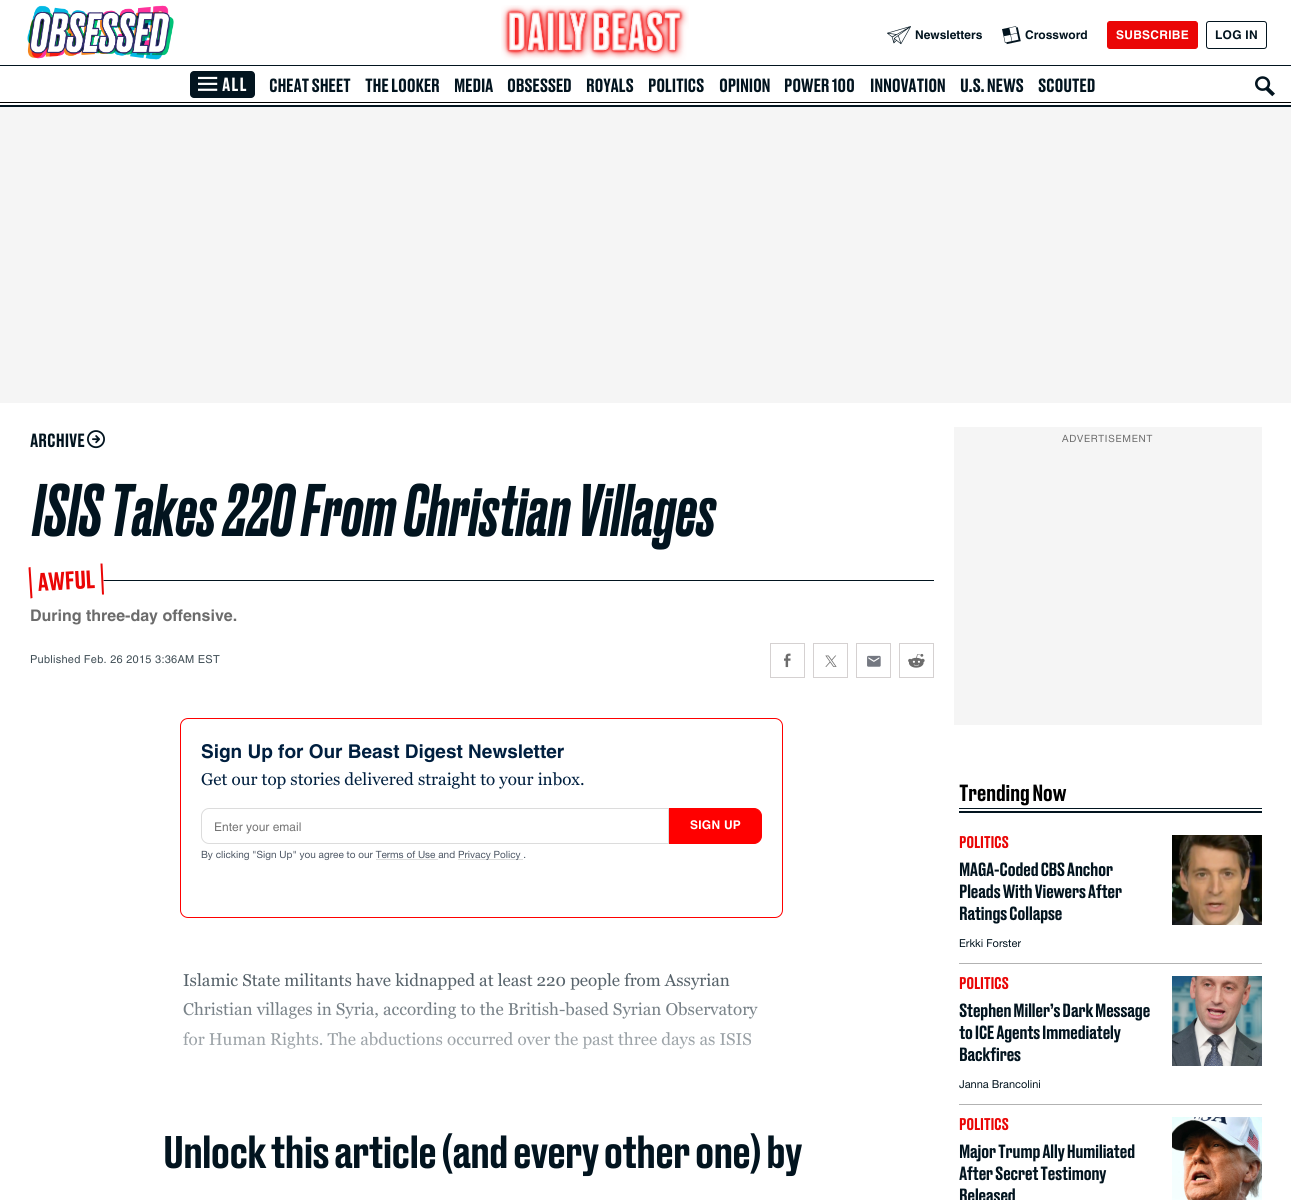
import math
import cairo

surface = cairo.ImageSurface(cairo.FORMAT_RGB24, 1291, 1200)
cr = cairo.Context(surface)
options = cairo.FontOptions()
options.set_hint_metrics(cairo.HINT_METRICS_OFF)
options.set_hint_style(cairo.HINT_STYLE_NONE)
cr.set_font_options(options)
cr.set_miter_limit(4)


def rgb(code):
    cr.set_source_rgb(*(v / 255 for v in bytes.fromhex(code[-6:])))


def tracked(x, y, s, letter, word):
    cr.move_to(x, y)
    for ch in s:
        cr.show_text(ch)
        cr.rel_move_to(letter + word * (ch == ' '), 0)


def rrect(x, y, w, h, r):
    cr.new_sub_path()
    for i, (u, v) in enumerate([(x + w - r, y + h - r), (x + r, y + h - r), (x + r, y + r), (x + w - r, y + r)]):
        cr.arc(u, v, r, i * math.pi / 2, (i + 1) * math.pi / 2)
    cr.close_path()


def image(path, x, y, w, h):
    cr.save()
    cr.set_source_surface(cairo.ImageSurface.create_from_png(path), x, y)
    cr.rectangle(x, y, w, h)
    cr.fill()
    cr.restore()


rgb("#ffffff")
cr.paint()
rgb("#02141f")
cr.rectangle(0, 105, 1291, 2)
cr.fill()
image("img/1.png", 27, 5, 147, 55)
image("img/2.png", 501, 5, 188, 55)
image("img/3.png", 887, 26, 24, 19)
image("img/4.png", 1002, 26, 19, 19)
rgb("#ea0606")
rrect(1107.5, 21.5, 90, 27, 2.5)
cr.fill_preserve()
cr.set_line_width(1)
cr.stroke()
rrect(1206.5, 21.5, 60, 27, 2.5)
rgb("#02141f")
cr.stroke()
cr.rectangle(0, 65, 1291, 1)
cr.fill()
rrect(190, 71, 65, 27, 4)
cr.fill()
image("img/5.png", 198, 76, 20, 15)
image("img/6.png", 1255, 76, 20, 21)
rgb("#000000")
cr.rectangle(0, 102, 1291, 1)
cr.fill()
rgb("#f5f5f5")
cr.rectangle(0, 107, 1291, 296)
cr.fill()
image("img/7.png", 87, 430, 18, 19)
rgb("#02141f")
cr.rectangle(103, 580, 831, 1)
cr.fill()
rgb("#ffffff")
cr.new_path()
cr.move_to(29, 567)
cr.line_to(103, 563)
cr.line_to(104, 594)
cr.line_to(30, 598)
cr.close_path()
cr.fill()
rgb("#ea0606")
cr.new_path()
cr.move_to(100.5, 563.5)
cr.line_to(102.5, 563.5)
cr.line_to(104, 594.5)
cr.line_to(102, 594.5)
cr.close_path()
cr.fill()
cr.new_path()
cr.move_to(28.5, 567.5)
cr.line_to(30.5, 567)
cr.line_to(32.5, 598)
cr.line_to(30.5, 598.5)
cr.close_path()
cr.fill()
image("img/8.png", 770, 643, 35, 35)
image("img/9.png", 813, 643, 35, 35)
image("img/10.png", 856, 643, 35, 35)
image("img/11.png", 899, 643, 35, 35)
rrect(180.5, 718.5, 602, 199, 7.5)
rgb("#ff0000")
cr.stroke()
cr.new_path()
cr.move_to(209, 808.5)
cr.line_to(668.5, 808.5)
cr.line_to(668.5, 843.5)
cr.line_to(209, 843.5)
cr.curve_to(205, 843.5, 201.5, 840, 201.5, 836)
cr.line_to(201.5, 816)
cr.curve_to(201.5, 812, 205, 808.5, 209, 808.5)
cr.close_path()
rgb("#dcdcdc")
cr.stroke()
rgb("#ff0000")
cr.new_path()
cr.move_to(669.5, 808.5)
cr.line_to(754, 808.5)
cr.curve_to(758, 808.5, 761.5, 812, 761.5, 816)
cr.line_to(761.5, 836)
cr.curve_to(761.5, 840, 758, 843.5, 754, 843.5)
cr.line_to(669.5, 843.5)
cr.close_path()
cr.fill_preserve()
cr.stroke()
for x, y, w, h, color in [
    (458, 859, 65, 1, "#dcdcdc"),
    (954, 427, 308, 298, "#f5f5f5"),
    (959, 808, 303, 1, "#02141f"),
    (959, 811, 303, 2, "#02141f"),
    (959, 963, 303, 1, "#b2b2b2"),
]:
    rgb(color)
    cr.rectangle(x, y, w, h)
    cr.fill()
image("img/12.png", 1172, 835, 90, 90)
cr.rectangle(959, 1104, 303, 1)
cr.fill()
image("img/13.png", 1172, 976, 90, 90)
image("img/14.png", 1172, 1117, 90, 83)
cr.select_font_face("Helvetica", cairo.FONT_SLANT_NORMAL, cairo.FONT_WEIGHT_BOLD)
cr.set_font_size(12)
rgb("#02141f")
cr.move_to(915, 39)
cr.show_text("Newsletters")
cr.move_to(1025, 39)
cr.show_text("Crossword")
rgb("#ffffff")
tracked(1116, 39, "SUBSCRIBE", 0.25, 0)
rgb("#02141f")
tracked(1215, 39, "LOG IN", 0.25, 0)
cr.select_font_face("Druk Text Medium")
cr.set_font_size(18)
rgb("#ffffff")
tracked(222, 91, "ALL", 1, 0)
rgb("#02141f")
for x, y, s in [
    (269, 92, "CHEAT SHEET"),
    (365, 92, "THE LOOKER"),
    (454, 92, "MEDIA"),
    (507, 92, "OBSESSED"),
    (586, 92, "ROYALS"),
    (648, 92, "POLITICS"),
    (719, 92, "OPINION"),
    (784, 92, "POWER 100"),
    (870, 92, "INNOVATION"),
    (960, 92, "U.S. NEWS"),
    (1038, 92, "SCOUTED"),
]:
    tracked(x, y, s, -0.25, 0)
cr.move_to(30, 447)
cr.show_text("ARCHIVE")
cr.select_font_face("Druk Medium", cairo.FONT_SLANT_ITALIC)
cr.set_font_size(70)
tracked(33, 536, "ISIS Takes 220 From Christian Villages", 0.5, 0)
cr.select_font_face("Druk Text Medium")
cr.set_font_size(24)
rgb("#ea0606")
cr.save()
cr.translate(38, 591)
cr.rotate(-3 * math.pi / 180)
tracked(0, 0, "AWFUL", -0.5, 0)
cr.restore()
cr.select_font_face("Helvetica", cairo.FONT_SLANT_NORMAL, cairo.FONT_WEIGHT_BOLD)
cr.set_font_size(16)
rgb("#6c6c6c")
cr.move_to(30, 621)
cr.show_text("During three-day offensive.")
cr.select_font_face("Helvetica")
cr.set_font_size(11)
rgb("#3f4d55")
tracked(30, 663, "Published Feb. 26 2015 3:36AM EST", 0.25, 0)
cr.select_font_face("Helvetica", cairo.FONT_SLANT_NORMAL, cairo.FONT_WEIGHT_BOLD)
cr.set_font_size(19)
rgb("#001f3f")
cr.move_to(201, 758)
cr.show_text("Sign Up for Our Beast Digest Newsletter")
cr.select_font_face("Georgia")
cr.set_font_size(17)
cr.move_to(201, 785)
cr.show_text("Get our top stories delivered straight to your inbox.")
cr.select_font_face("Helvetica")
cr.set_font_size(12)
rgb("#757575")
cr.move_to(214, 831)
cr.show_text("Enter your email")
cr.select_font_face("Helvetica", cairo.FONT_SLANT_NORMAL, cairo.FONT_WEIGHT_BOLD)
rgb("#ffffff")
tracked(690, 829, "SIGN UP", 0.25, 0)
cr.select_font_face("Helvetica Neue")
cr.set_font_size(10)
rgb("#4b5563")
cr.move_to(201, 858)
cr.show_text("By clicking \"Sign Up\" you agree to our Terms of Use and")
cr.move_to(458, 858)
cr.show_text("Privacy Policy .")
rgb("#dcdcdc")
cr.rectangle(376, 859, 62, 1)
cr.fill()
cr.select_font_face("Georgia")
cr.set_font_size(17)
rgb("#283741")
for x, y, s in [
    (183, 986, "Islamic State militants have kidnapped at least 220 people from Assyrian"),
    (183, 1015, "Christian villages in Syria, according to the British-based Syrian Observatory"),
    (183, 1045, "for Human Rights. The abductions occurred over the past three days as ISIS"),
]:
    cr.move_to(x, y)
    cr.show_text(s)
gradient = cairo.LinearGradient(635, 1124, 635, 942)
gradient.add_color_stop_rgba(0, 1, 1, 1, 1)
gradient.add_color_stop_rgba(1, 1, 1, 1, 0)
cr.set_source(gradient)
cr.rectangle(183, 973, 575, 76)
cr.fill()
cr.select_font_face("Druk Text Medium")
cr.set_font_size(43)
rgb("#02141f")
tracked(163, 1168, "Unlock this article (and every other one) by", -1.2, 0)
cr.select_font_face("Helvetica Neue")
cr.set_font_size(10)
rgb("#6c6c6c")
tracked(1062, 442, "ADVERTISEMENT", 0.75, 0)
cr.select_font_face("Druk Text Medium")
cr.set_font_size(22)
rgb("#000000")
tracked(959, 801, "Trending Now", -0.5, 0)
cr.set_font_size(16)
rgb("#ea0606")
tracked(959, 848, "POLITICS", -0.25, 0)
cr.set_font_size(18)
rgb("#02141f")
for x, y, s in [
    (959, 876, "MAGA-Coded CBS Anchor"),
    (959, 898, "Pleads With Viewers After"),
    (959, 920, "Ratings Collapse"),
]:
    tracked(x, y, s, -0.5, 0)
cr.select_font_face("Helvetica Neue")
cr.set_font_size(11)
cr.move_to(959, 947)
cr.show_text("Erkki Forster")
cr.select_font_face("Druk Text Medium")
cr.set_font_size(16)
rgb("#ea0606")
tracked(959, 989, "POLITICS", -0.25, 0)
cr.set_font_size(18)
rgb("#02141f")
for x, y, s in [
    (959, 1017, "Stephen Miller’s Dark Message"),
    (959, 1039, "to ICE Agents Immediately"),
    (959, 1061, "Backfires"),
]:
    tracked(x, y, s, -0.5, 0)
cr.select_font_face("Helvetica Neue")
cr.set_font_size(11)
cr.move_to(959, 1088)
cr.show_text("Janna Brancolini")
cr.select_font_face("Druk Text Medium")
cr.set_font_size(16)
rgb("#ea0606")
tracked(959, 1130, "POLITICS", -0.25, 0)
cr.set_font_size(18)
rgb("#02141f")
for x, y, s in [
    (959, 1158, "Major Trump Ally Humiliated"),
    (959, 1180, "After Secret Testimony"),
    (959, 1202, "Released"),
]:
    tracked(x, y, s, -0.5, 0)
surface.write_to_png("page.png")
